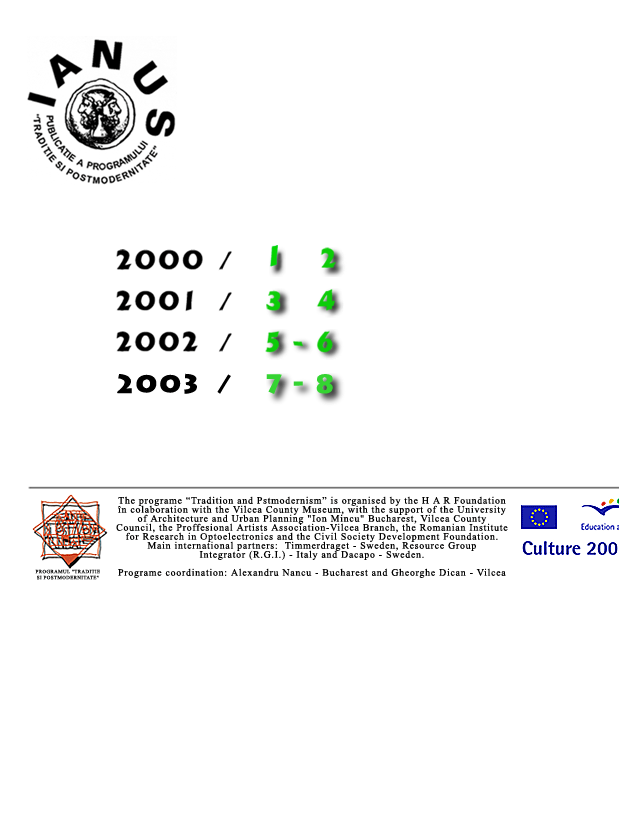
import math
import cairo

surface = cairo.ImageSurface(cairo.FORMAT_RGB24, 619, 832)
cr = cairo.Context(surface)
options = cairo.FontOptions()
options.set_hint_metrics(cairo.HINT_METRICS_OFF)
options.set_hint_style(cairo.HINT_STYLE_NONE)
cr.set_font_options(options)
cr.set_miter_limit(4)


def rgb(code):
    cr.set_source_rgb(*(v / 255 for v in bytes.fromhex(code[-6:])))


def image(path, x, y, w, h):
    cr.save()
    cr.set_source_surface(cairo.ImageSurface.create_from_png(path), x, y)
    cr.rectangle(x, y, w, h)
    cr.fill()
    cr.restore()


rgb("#ffffff")
cr.paint()
image("img/1.png", 27, 36, 150, 149)
image("img/2.png", 28, 249, 230, 331)
image("img/3.png", 269, 245, 17, 32)
image("img/4.png", 320, 247, 22, 30)
image("img/5.png", 342, 252, 277, 326)
image("img/6.png", 266, 288, 24, 31)
image("img/7.png", 316, 288, 26, 30)
image("img/8.png", 265, 329, 77, 29)
image("img/9.png", 269, 358, 67, 2)
image("img/10.png", 266, 373, 76, 30)
image("img/11.png", 258, 403, 84, 173)
surface.write_to_png("page.png")
